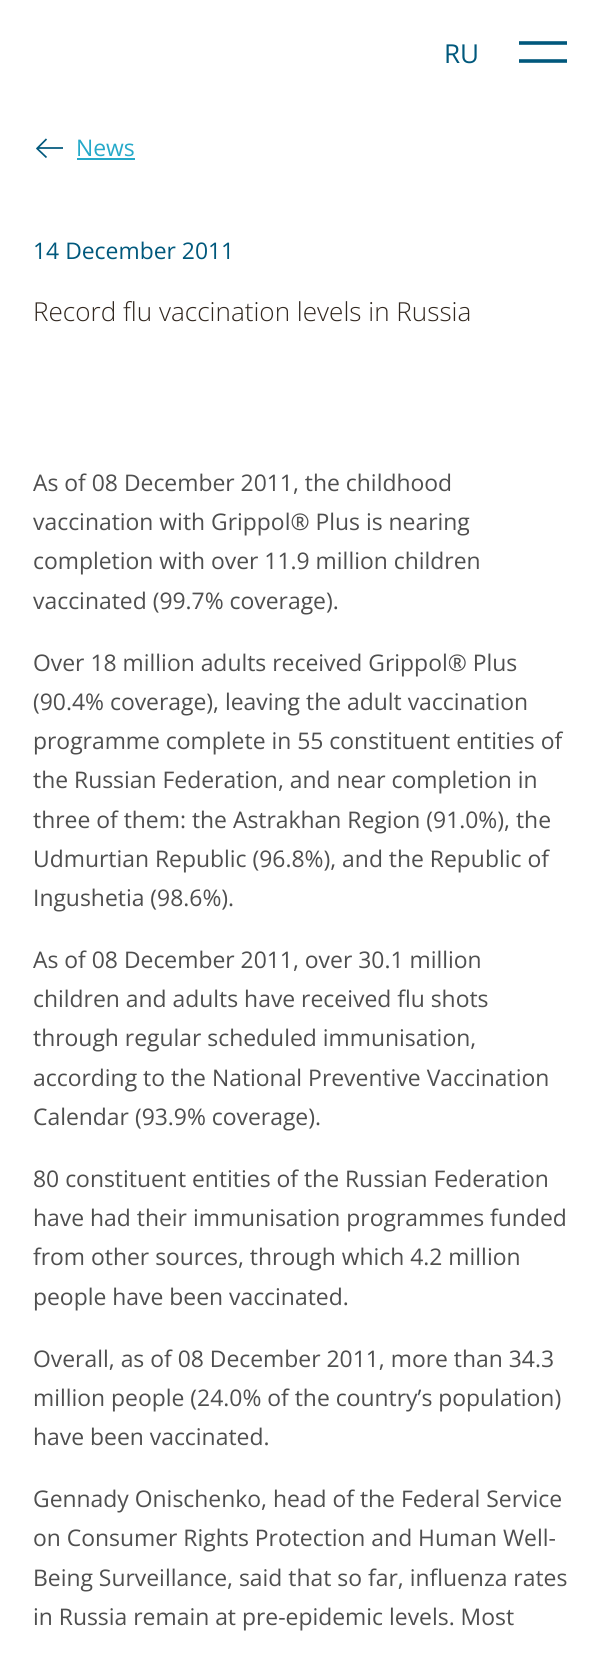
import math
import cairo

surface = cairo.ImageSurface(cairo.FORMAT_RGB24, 599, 1657)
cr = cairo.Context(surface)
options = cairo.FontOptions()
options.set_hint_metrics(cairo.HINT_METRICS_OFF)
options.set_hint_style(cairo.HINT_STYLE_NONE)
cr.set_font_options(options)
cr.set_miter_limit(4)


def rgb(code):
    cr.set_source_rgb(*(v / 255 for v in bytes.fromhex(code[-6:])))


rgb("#ffffff")
cr.paint()
cr.save()
cr.rectangle(519, 30, 48, 48)
cr.clip()
cr.new_path()
cr.move_to(519, 43)
cr.line_to(568, 43)
cr.move_to(519, 61)
cr.line_to(568, 61)
rgb("#00587c")
cr.set_line_width(3.6)
cr.set_line_cap(cairo.LINE_CAP_ROUND)
cr.set_line_join(cairo.LINE_JOIN_ROUND)
cr.stroke()
cr.restore()
cr.save()
cr.rectangle(33, 138, 30, 23)
cr.clip()
cr.new_path()
cr.move_to(46.5, 139)
cr.line_to(37, 148.5)
cr.move_to(36.5, 148)
cr.line_to(46.5, 157.5)
cr.move_to(37.5, 148)
cr.line_to(65.5, 148)
rgb("#00587c")
cr.set_line_width(1.7)
cr.stroke()
cr.restore()
rgb("#25a9c9")
cr.rectangle(77, 158, 58, 2)
cr.fill()
cr.select_font_face("Open Sans")
cr.set_font_size(26.1)
rgb("#00587c")
cr.move_to(444, 63)
cr.show_text("RU")
cr.set_font_size(22.9)
rgb("#25a9c9")
cr.move_to(76, 156)
cr.show_text("News")
rgb("#00587c")
cr.move_to(33, 259)
cr.show_text("14 December 2011")
cr.select_font_face("Open Sans Light")
cr.set_font_size(26.1)
rgb("#31271f")
cr.move_to(33, 321)
cr.show_text("Record flu vaccination levels in Russia")
cr.select_font_face("Open Sans")
cr.set_font_size(22.9)
rgb("#4f4f4f")
for x, y, s in [
    (33, 491, "As of 08 December 2011, the childhood"),
    (33, 530, "vaccination with Grippol® Plus is nearing"),
    (33, 569, "completion with over 11.9 million children"),
    (33, 609, "vaccinated (99.7% coverage)."),
    (33, 671, "Over 18 million adults received Grippol® Plus"),
    (33, 710, "(90.4% coverage), leaving the adult vaccination"),
    (33, 749, "programme complete in 55 constituent entities of"),
    (33, 788, "the Russian Federation, and near completion in"),
    (33, 828, "three of them: the Astrakhan Region (91.0%), the"),
    (33, 867, "Udmurtian Republic (96.8%), and the Republic of"),
    (33, 906, "Ingushetia (98.6%)."),
    (33, 968, "As of 08 December 2011, over 30.1 million"),
    (33, 1007, "children and adults have received flu shots"),
    (33, 1046, "through regular scheduled immunisation,"),
    (33, 1086, "according to the National Preventive Vaccination"),
    (33, 1125, "Calendar (93.9% coverage)."),
    (33, 1187, "80 constituent entities of the Russian Federation"),
    (33, 1226, "have had their immunisation programmes funded"),
    (33, 1265, "from other sources, through which 4.2 million"),
    (33, 1305, "people have been vaccinated."),
    (33, 1367, "Overall, as of 08 December 2011, more than 34.3"),
    (33, 1406, "million people (24.0% of the country’s population)"),
    (33, 1445, "have been vaccinated."),
    (33, 1507, "Gennady Onischenko, head of the Federal Service"),
    (33, 1546, "on Consumer Rights Protection and Human Well-"),
    (33, 1586, "Being Surveillance, said that so far, influenza rates"),
    (33, 1625, "in Russia remain at pre-epidemic levels. Most"),
]:
    cr.move_to(x, y)
    cr.show_text(s)
surface.write_to_png("page.png")
